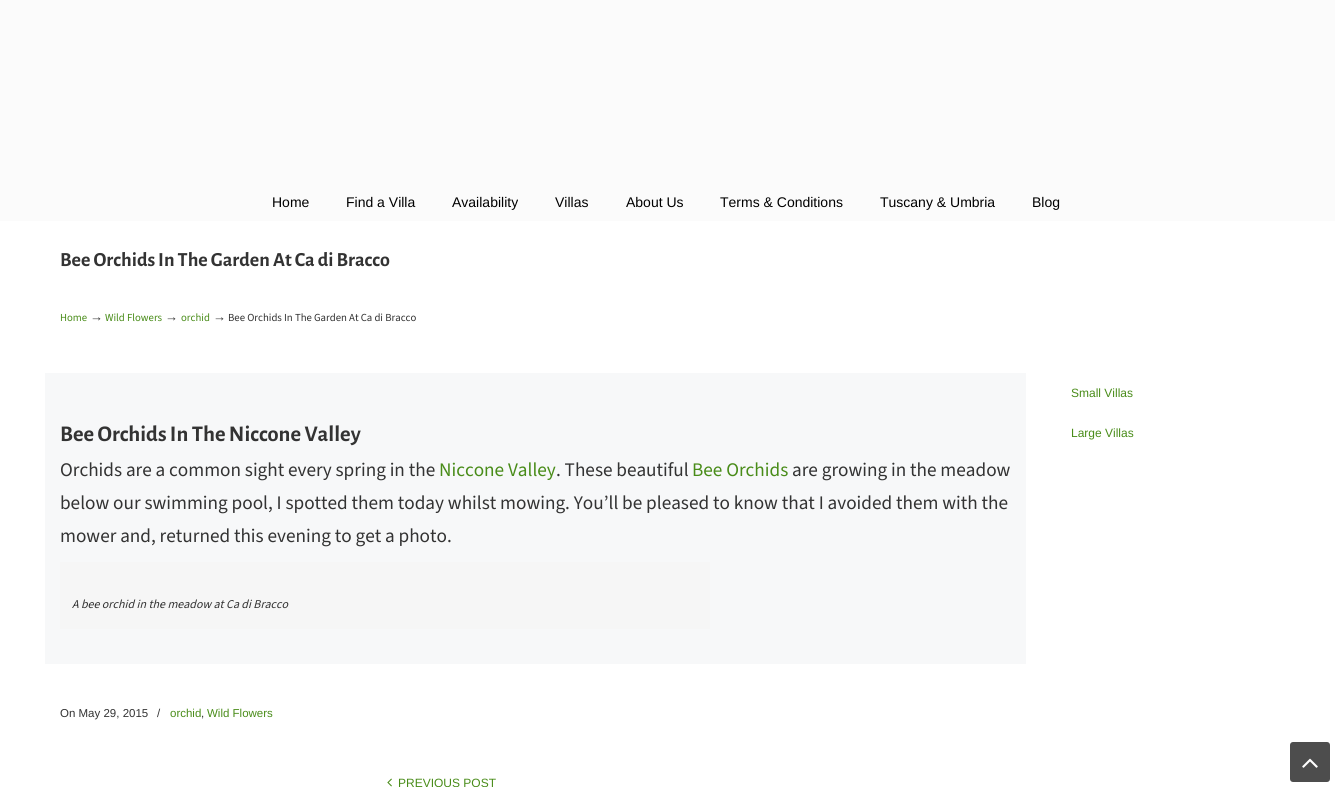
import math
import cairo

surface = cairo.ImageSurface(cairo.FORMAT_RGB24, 1335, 787)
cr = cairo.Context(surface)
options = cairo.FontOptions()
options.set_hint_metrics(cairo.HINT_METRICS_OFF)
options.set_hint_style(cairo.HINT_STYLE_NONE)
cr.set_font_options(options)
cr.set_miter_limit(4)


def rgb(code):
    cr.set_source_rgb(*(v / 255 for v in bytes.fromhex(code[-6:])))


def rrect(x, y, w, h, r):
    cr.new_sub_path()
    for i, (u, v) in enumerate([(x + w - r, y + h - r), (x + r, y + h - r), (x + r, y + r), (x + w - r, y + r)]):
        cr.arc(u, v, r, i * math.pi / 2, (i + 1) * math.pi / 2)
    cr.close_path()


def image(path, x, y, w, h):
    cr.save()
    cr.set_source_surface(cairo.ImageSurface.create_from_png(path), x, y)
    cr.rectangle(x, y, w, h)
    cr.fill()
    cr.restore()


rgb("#fbfbfb")
cr.paint()
for x, y, w, h, color in [
    (0, 221, 1335, 566, "#ffffff"),
    (45, 373, 981, 291, "#f7f8f9"),
    (60, 562, 650, 67, "#f6f6f6"),
]:
    rgb(color)
    cr.rectangle(x, y, w, h)
    cr.fill()
image("img/1.png", 387, 778, 5, 9)
rgb("#4d4d4d")
rrect(1290, 742, 40, 40, 3)
cr.fill()
image("img/2.png", 1302, 758, 16, 10)
cr.select_font_face("Liberation Sans")
cr.set_font_size(14)
rgb("#000000")
for x, y, s in [
    (272, 207, "Home"),
    (346, 207, "Find a Villa"),
    (452, 207, "Availability"),
    (555, 207, "Villas"),
    (626, 207, "About Us"),
    (720, 207, "Terms & Conditions"),
    (880, 207, "Tuscany & Umbria"),
    (1032, 207, "Blog"),
]:
    cr.move_to(x, y)
    cr.show_text(s)
cr.select_font_face("Alegreya Sans", cairo.FONT_SLANT_NORMAL, cairo.FONT_WEIGHT_BOLD)
cr.set_font_size(20)
rgb("#333333")
cr.move_to(60, 266)
cr.show_text("Bee Orchids In The Garden At Ca di Bracco")
cr.select_font_face("Source Sans 3 ExtraLight")
cr.set_font_size(10.75)
rgb("#498c19")
cr.move_to(60, 321)
cr.show_text("Home")
cr.select_font_face("Liberation Sans")
cr.set_font_size(13)
rgb("#333333")
cr.move_to(90, 321)
cr.show_text("→")
cr.select_font_face("Source Sans 3 ExtraLight")
cr.set_font_size(10.75)
rgb("#498c19")
cr.move_to(105, 321)
cr.show_text("Wild Flowers")
cr.select_font_face("Liberation Sans")
cr.set_font_size(13)
rgb("#333333")
cr.move_to(165, 321)
cr.show_text("→")
cr.select_font_face("Source Sans 3 ExtraLight")
cr.set_font_size(10.75)
rgb("#498c19")
cr.move_to(181, 321)
cr.show_text("orchid")
cr.select_font_face("Liberation Sans")
cr.set_font_size(13)
rgb("#333333")
cr.move_to(213, 321)
cr.show_text("→")
cr.select_font_face("Source Sans 3 ExtraLight")
cr.set_font_size(10.75)
cr.move_to(228, 321)
cr.show_text("Bee Orchids In The Garden At Ca di Bracco")
cr.select_font_face("Liberation Sans")
cr.set_font_size(12)
rgb("#498c19")
cr.move_to(1071, 397)
cr.show_text("Small Villas")
cr.move_to(1071, 437)
cr.show_text("Large Villas")
cr.select_font_face("Alegreya Sans", cairo.FONT_SLANT_NORMAL, cairo.FONT_WEIGHT_BOLD)
cr.set_font_size(22.4)
rgb("#333333")
cr.move_to(60, 441)
cr.show_text("Bee Orchids In The Niccone Valley")
cr.select_font_face("Source Sans 3 ExtraLight")
cr.set_font_size(19.2)
cr.move_to(60, 476)
cr.show_text("Orchids are a common sight every spring in the")
rgb("#498c19")
cr.move_to(439, 476)
cr.show_text("Niccone Valley")
rgb("#333333")
cr.move_to(556, 476)
cr.show_text(". These beautiful")
rgb("#498c19")
cr.move_to(692, 476)
cr.show_text("Bee Orchids")
rgb("#333333")
for x, y, s in [
    (792, 476, "are growing in the meadow"),
    (60, 509, "below our swimming pool, I spotted them today whilst mowing. You’ll be pleased to know that I avoided them with the"),
    (60, 542, "mower and, returned this evening to get a photo."),
]:
    cr.move_to(x, y)
    cr.show_text(s)
cr.select_font_face("Source Sans 3 ExtraLight", cairo.FONT_SLANT_ITALIC)
cr.set_font_size(12)
cr.move_to(72, 608)
cr.show_text("A bee orchid in the meadow at Ca di Bracco")
cr.select_font_face("Liberation Sans")
cr.set_font_size(11.5)
cr.move_to(60, 717)
cr.show_text("On May 29, 2015")
cr.move_to(157, 717)
cr.show_text("/")
rgb("#498c19")
cr.move_to(170, 717)
cr.show_text("orchid")
rgb("#333333")
cr.move_to(201, 717)
cr.show_text(",")
rgb("#498c19")
cr.move_to(207, 717)
cr.show_text("Wild Flowers")
cr.set_font_size(12)
cr.move_to(398, 787)
cr.show_text("PREVIOUS POST")
surface.write_to_png("page.png")
